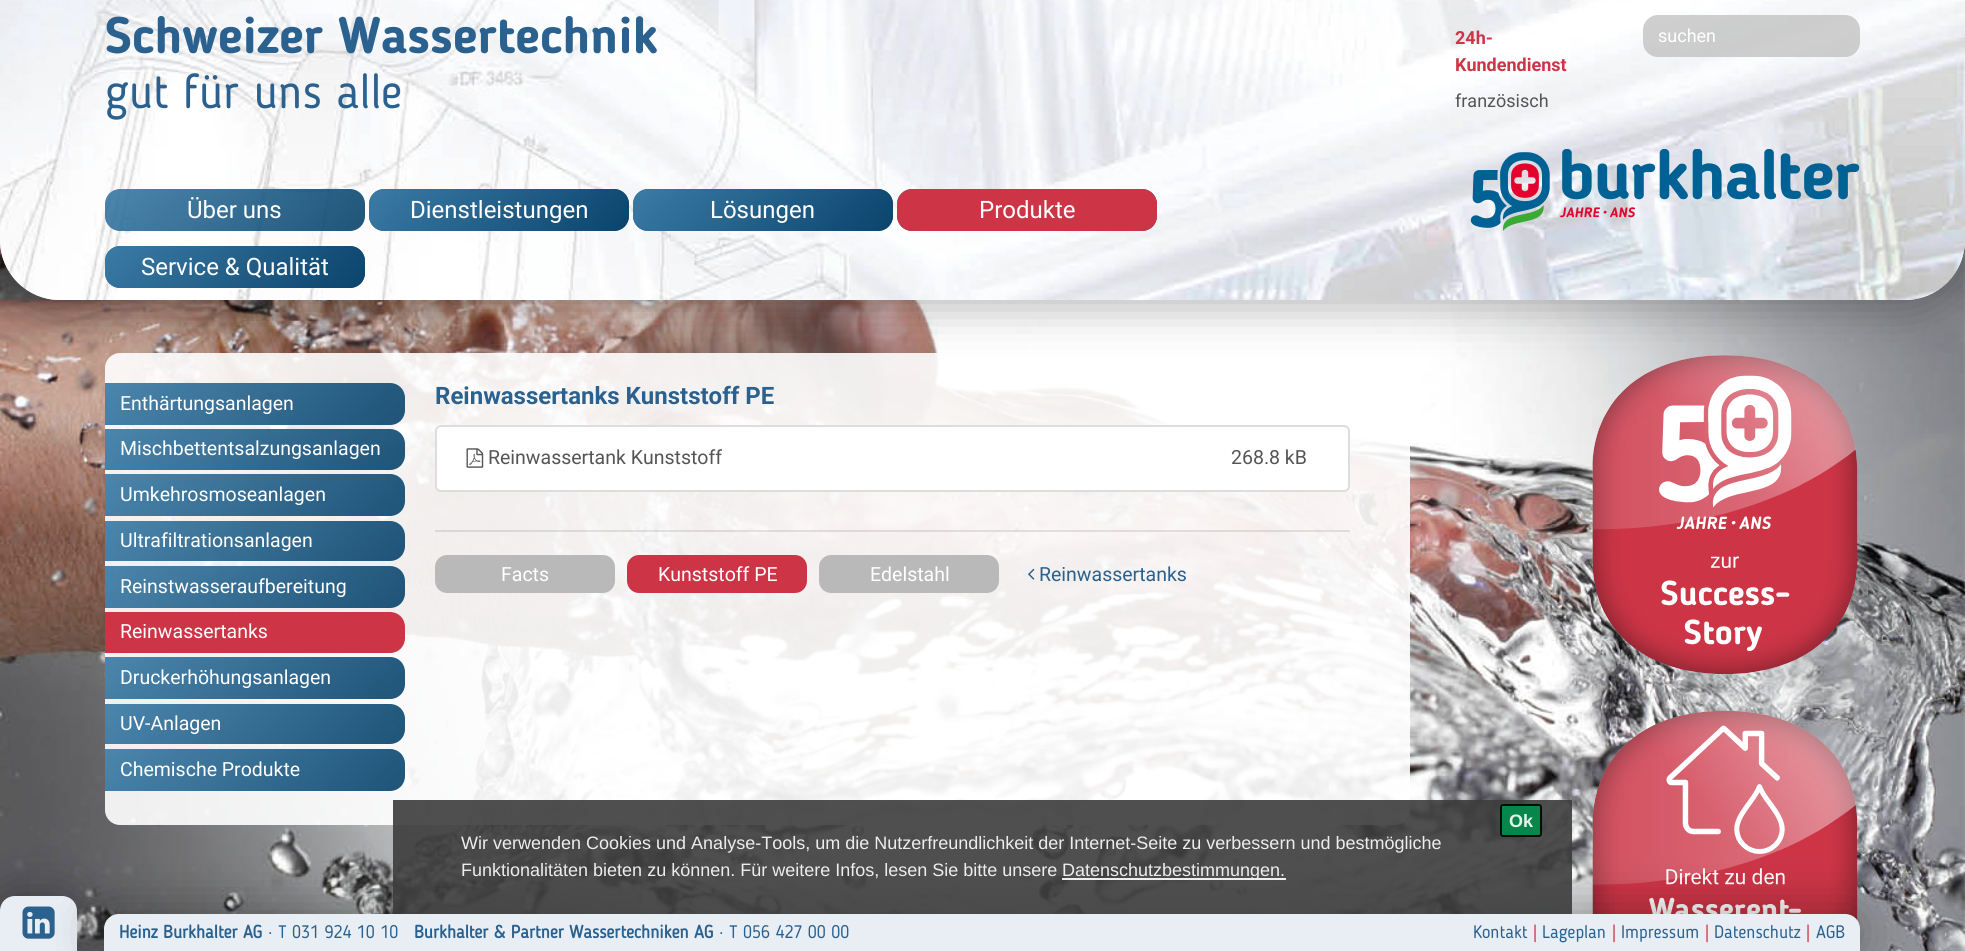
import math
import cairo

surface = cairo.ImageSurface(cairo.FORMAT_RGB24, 1965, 951)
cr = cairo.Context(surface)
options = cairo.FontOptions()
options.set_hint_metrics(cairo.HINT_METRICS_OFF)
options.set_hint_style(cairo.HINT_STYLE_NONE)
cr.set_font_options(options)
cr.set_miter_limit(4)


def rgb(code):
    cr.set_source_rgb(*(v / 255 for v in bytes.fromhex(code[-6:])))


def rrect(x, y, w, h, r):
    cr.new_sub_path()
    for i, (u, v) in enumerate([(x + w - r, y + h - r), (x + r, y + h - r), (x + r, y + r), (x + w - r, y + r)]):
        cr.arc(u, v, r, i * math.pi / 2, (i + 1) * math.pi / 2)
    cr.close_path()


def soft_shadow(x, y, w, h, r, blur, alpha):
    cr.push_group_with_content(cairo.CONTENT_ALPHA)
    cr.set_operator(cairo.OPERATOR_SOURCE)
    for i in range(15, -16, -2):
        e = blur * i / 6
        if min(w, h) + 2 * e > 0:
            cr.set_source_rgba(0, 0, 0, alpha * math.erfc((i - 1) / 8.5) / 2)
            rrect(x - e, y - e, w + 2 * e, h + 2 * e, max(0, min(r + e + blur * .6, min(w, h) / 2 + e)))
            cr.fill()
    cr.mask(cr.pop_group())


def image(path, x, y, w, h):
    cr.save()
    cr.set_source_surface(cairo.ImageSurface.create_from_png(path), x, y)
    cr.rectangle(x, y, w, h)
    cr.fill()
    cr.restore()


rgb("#ffffff")
cr.paint()
image("img/3.png", 0, 240, 1965, 711)
cr.set_source_rgba(1, 1, 1, 0.9)
rrect(105, 353, 1305, 472, 15)
cr.fill()
image("img/6.png", 1592, 355, 266, 319)
rgb("#000000")
soft_shadow(-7, -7, 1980, 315, 68, 22.5, 0.28)
rgb("#f2f2f2")
cr.new_path()
cr.move_to(0, 0)
cr.line_to(1965, 0)
cr.line_to(1965, 240)
cr.curve_to(1965, 273, 1938, 300, 1905, 300)
cr.line_to(60, 300)
cr.curve_to(27, 300, 0, 273, 0, 240)
cr.close_path()
cr.fill()
image("img/1.png", 0, 0, 1965, 300)
cr.set_source_rgba(0.733, 0.733, 0.733, 0.7)
rrect(1643, 15, 217, 42, 15)
cr.fill()
rgb("#cd3547")
rrect(897, 189, 260, 42, 15)
cr.fill()
image("img/2.png", 1470, 149, 390, 82)
gradient = cairo.LinearGradient(170, 318, 341, 489)
gradient.add_color_stop_rgba(0, 0.224, 0.478, 0.647, 0.9)
gradient.add_color_stop_rgba(1, 0.031, 0.259, 0.42, 0.9)
cr.set_source(gradient)
cr.new_path()
cr.move_to(105, 383)
cr.line_to(390, 383)
cr.curve_to(398.5, 383, 405, 389.5, 405, 398)
cr.line_to(405, 410)
cr.curve_to(405, 418.5, 398.5, 425, 390, 425)
cr.line_to(105, 425)
cr.close_path()
cr.fill()
gradient = cairo.LinearGradient(170, 364, 340, 534)
gradient.add_color_stop_rgba(0, 0.224, 0.478, 0.647, 0.9)
gradient.add_color_stop_rgba(1, 0.031, 0.259, 0.42, 0.9)
cr.set_source(gradient)
cr.new_path()
cr.move_to(105, 429)
cr.line_to(390, 429)
cr.curve_to(398.5, 429, 405, 435.5, 405, 444)
cr.line_to(405, 455)
cr.curve_to(405, 463.5, 398.5, 470, 390, 470)
cr.line_to(105, 470)
cr.close_path()
cr.fill()
gradient = cairo.LinearGradient(170, 410, 341, 581)
gradient.add_color_stop_rgba(0, 0.224, 0.478, 0.647, 0.9)
gradient.add_color_stop_rgba(1, 0.031, 0.259, 0.42, 0.9)
cr.set_source(gradient)
cr.new_path()
cr.move_to(105, 474)
cr.line_to(390, 474)
cr.curve_to(398.5, 474, 405, 480.5, 405, 489)
cr.line_to(405, 501)
cr.curve_to(405, 509.5, 398.5, 516, 390, 516)
cr.line_to(105, 516)
cr.close_path()
cr.fill()
gradient = cairo.LinearGradient(170, 456, 340, 626)
gradient.add_color_stop_rgba(0, 0.224, 0.478, 0.647, 0.9)
gradient.add_color_stop_rgba(1, 0.031, 0.259, 0.42, 0.9)
cr.set_source(gradient)
cr.new_path()
cr.move_to(105, 521)
cr.line_to(390, 521)
cr.curve_to(398.5, 521, 405, 527.5, 405, 536)
cr.line_to(405, 546)
cr.curve_to(405, 554.5, 398.5, 561, 390, 561)
cr.line_to(105, 561)
cr.close_path()
cr.fill()
gradient = cairo.LinearGradient(170, 501, 341, 672)
gradient.add_color_stop_rgba(0, 0.224, 0.478, 0.647, 0.9)
gradient.add_color_stop_rgba(1, 0.031, 0.259, 0.42, 0.9)
cr.set_source(gradient)
cr.new_path()
cr.move_to(105, 566)
cr.line_to(390, 566)
cr.curve_to(398.5, 566, 405, 572.5, 405, 581)
cr.line_to(405, 593)
cr.curve_to(405, 601.5, 398.5, 608, 390, 608)
cr.line_to(105, 608)
cr.close_path()
cr.fill()
rgb("#cd3547")
cr.new_path()
cr.move_to(105, 612)
cr.line_to(390, 612)
cr.curve_to(398.5, 612, 405, 618.5, 405, 627)
cr.line_to(405, 638)
cr.curve_to(405, 646.5, 398.5, 653, 390, 653)
cr.line_to(105, 653)
cr.close_path()
cr.fill()
gradient = cairo.LinearGradient(170, 593, 341, 764)
gradient.add_color_stop_rgba(0, 0.224, 0.478, 0.647, 0.9)
gradient.add_color_stop_rgba(1, 0.031, 0.259, 0.42, 0.9)
cr.set_source(gradient)
cr.new_path()
cr.move_to(105, 657)
cr.line_to(390, 657)
cr.curve_to(398.5, 657, 405, 663.5, 405, 672)
cr.line_to(405, 684)
cr.curve_to(405, 692.5, 398.5, 699, 390, 699)
cr.line_to(105, 699)
cr.close_path()
cr.fill()
gradient = cairo.LinearGradient(170, 639, 340, 809)
gradient.add_color_stop_rgba(0, 0.224, 0.478, 0.647, 0.9)
gradient.add_color_stop_rgba(1, 0.031, 0.259, 0.42, 0.9)
cr.set_source(gradient)
cr.new_path()
cr.move_to(105, 704)
cr.line_to(390, 704)
cr.curve_to(398.5, 704, 405, 710.5, 405, 719)
cr.line_to(405, 729)
cr.curve_to(405, 737.5, 398.5, 744, 390, 744)
cr.line_to(105, 744)
cr.close_path()
cr.fill()
gradient = cairo.LinearGradient(170, 684, 341, 855)
gradient.add_color_stop_rgba(0, 0.224, 0.478, 0.647, 0.9)
gradient.add_color_stop_rgba(1, 0.031, 0.259, 0.42, 0.9)
cr.set_source(gradient)
cr.new_path()
cr.move_to(105, 749)
cr.line_to(390, 749)
cr.curve_to(398.5, 749, 405, 755.5, 405, 764)
cr.line_to(405, 776)
cr.curve_to(405, 784.5, 398.5, 791, 390, 791)
cr.line_to(105, 791)
cr.close_path()
cr.fill()
rgb("#ffffff")
rrect(436, 426, 913, 65, 5)
cr.fill_preserve()
rgb("#dddddd")
cr.stroke()
image("img/4.png", 466, 448, 18, 20)
cr.set_source_rgba(0, 0, 0, 0.1)
cr.rectangle(435, 530, 915, 2)
cr.fill()
rgb("#bab9b9")
rrect(435, 555, 180, 38, 12)
cr.fill()
rgb("#cd3547")
rrect(627, 555, 180, 38, 12)
cr.fill()
rgb("#bab9b9")
rrect(819, 555, 180, 38, 12)
cr.fill()
image("img/5.png", 1028, 568, 7, 12)
image("img/7.png", 1592, 710, 266, 212)
rgb("#000000")
soft_shadow(-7, 888, 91, 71, 23, 22.5, 0.28)
rgb("#e8eef3")
cr.new_path()
cr.move_to(15, 896)
cr.line_to(62, 896)
cr.curve_to(70.5, 896, 77, 902.5, 77, 911)
cr.line_to(77, 951)
cr.line_to(0, 951)
cr.line_to(0, 911)
cr.curve_to(0, 902.5, 6.5, 896, 15, 896)
cr.close_path()
cr.fill()
image("img/8.png", 22, 906, 33, 33)
rgb("#000000")
soft_shadow(96, 906, 1772, 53, 23, 22.5, 0.28)
rgb("#e8eef3")
cr.new_path()
cr.move_to(119, 914)
cr.line_to(1845, 914)
cr.curve_to(1853.5, 914, 1860, 920.5, 1860, 929)
cr.line_to(1860, 951)
cr.line_to(104, 951)
cr.line_to(104, 929)
cr.curve_to(104, 920.5, 110.5, 914, 119, 914)
cr.close_path()
cr.fill()
cr.set_source_rgba(0.235, 0.235, 0.235, 0.9)
cr.rectangle(393, 800, 1179, 114)
cr.fill()
cr.set_source_rgba(0, 0.553, 0.298, 0.9)
rrect(1500, 804, 42, 33, 3)
cr.fill()
rrect(1501, 805, 40, 31, 2)
cr.set_source_rgba(0, 0, 0, 0.9)
cr.stroke()
cr.set_source_rgba(1, 1, 1, 0.9)
cr.rectangle(1062, 878, 224, 2)
cr.fill()
cr.select_font_face("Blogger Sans", cairo.FONT_SLANT_NORMAL, cairo.FONT_WEIGHT_BOLD)
cr.set_font_size(51)
rgb("#2b618e")
cr.move_to(105, 53)
cr.show_text("Schweizer Wassertechnik")
cr.select_font_face("Blogger Sans")
cr.set_font_size(48)
cr.move_to(105, 108)
cr.show_text("gut für uns alle")
cr.select_font_face("Roboto", cairo.FONT_SLANT_NORMAL, cairo.FONT_WEIGHT_BOLD)
cr.set_font_size(18)
rgb("#cd3547")
cr.move_to(1455, 44)
cr.show_text("24h-")
cr.move_to(1455, 71)
cr.show_text("Kundendienst")
cr.select_font_face("Roboto")
rgb("#555555")
cr.move_to(1455, 107)
cr.show_text("französisch")
rgb("#ffffff")
cr.move_to(1658, 42)
cr.show_text("suchen")
cr.set_font_size(24)
for x, y, s in [
    (187, 218, "Über uns"),
    (410, 218, "Dienstleistungen"),
    (710, 218, "Lösungen"),
    (979, 218, "Produkte"),
    (141, 275, "Service & Qualität"),
]:
    cr.move_to(x, y)
    cr.show_text(s)
cr.set_font_size(19.5)
for x, y, s in [
    (120, 410, "Enthärtungsanlagen"),
    (120, 455, "Mischbettentsalzungsanlagen"),
    (120, 501, "Umkehrosmoseanlagen"),
    (120, 547, "Ultrafiltrationsanlagen"),
    (120, 593, "Reinstwasseraufbereitung"),
    (120, 638, "Reinwassertanks"),
    (120, 684, "Druckerhöhungsanlagen"),
    (120, 730, "UV-Anlagen"),
    (120, 776, "Chemische Produkte"),
]:
    cr.move_to(x, y)
    cr.show_text(s)
cr.select_font_face("Roboto", cairo.FONT_SLANT_NORMAL, cairo.FONT_WEIGHT_BOLD)
cr.set_font_size(24)
rgb("#2b618e")
cr.move_to(435, 404)
cr.show_text("Reinwassertanks Kunststoff PE")
cr.select_font_face("Roboto")
cr.set_font_size(19.5)
rgb("#555555")
cr.move_to(488, 464)
cr.show_text("Reinwassertank Kunststoff")
cr.move_to(1231, 464)
cr.show_text("268.8 kB")
rgb("#ffffff")
for x, y, s in [
    (501, 581, "Facts"),
    (658, 581, "Kunststoff PE"),
    (870, 581, "Edelstahl"),
]:
    cr.move_to(x, y)
    cr.show_text(s)
rgb("#2b618e")
cr.move_to(1039, 581)
cr.show_text("Reinwassertanks")
cr.select_font_face("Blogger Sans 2", cairo.FONT_SLANT_NORMAL, cairo.FONT_WEIGHT_BOLD)
cr.set_font_size(18)
cr.move_to(119, 938)
cr.show_text("Heinz Burkhalter AG")
cr.select_font_face("Blogger Sans")
cr.move_to(268, 938)
cr.show_text("· T 031 924 10 10")
cr.select_font_face("Blogger Sans 2", cairo.FONT_SLANT_NORMAL, cairo.FONT_WEIGHT_BOLD)
cr.move_to(414, 938)
cr.show_text("Burkhalter & Partner Wassertechniken AG")
cr.select_font_face("Blogger Sans")
cr.move_to(719, 938)
cr.show_text("· T 056 427 00 00")
cr.move_to(1473, 938)
cr.show_text("Kontakt")
rgb("#cd3547")
cr.move_to(1533, 938)
cr.show_text("|")
rgb("#2b618e")
cr.move_to(1542, 938)
cr.show_text("Lageplan")
rgb("#cd3547")
cr.move_to(1612, 938)
cr.show_text("|")
rgb("#2b618e")
cr.move_to(1621, 938)
cr.show_text("Impressum")
rgb("#cd3547")
cr.move_to(1705, 938)
cr.show_text("|")
rgb("#2b618e")
cr.move_to(1714, 938)
cr.show_text("Datenschutz")
rgb("#cd3547")
cr.move_to(1806, 938)
cr.show_text("|")
rgb("#2b618e")
cr.move_to(1816, 938)
cr.show_text("AGB")
cr.select_font_face("Liberation Sans", cairo.FONT_SLANT_NORMAL, cairo.FONT_WEIGHT_BOLD)
rgb("#e6f3ed")
cr.move_to(1509, 827)
cr.show_text("Ok")
cr.select_font_face("Liberation Sans")
rgb("#ededed")
for x, y, s in [
    (461, 849, "Wir verwenden Cookies und Analyse-Tools, um die Nutzerfreundlichkeit der Internet-Seite zu verbessern und bestmögliche"),
    (461, 876, "Funktionalitäten bieten zu können. Für weitere Infos, lesen Sie bitte unsere"),
    (1062, 876, "Datenschutzbestimmungen."),
]:
    cr.move_to(x, y)
    cr.show_text(s)
surface.write_to_png("page.png")
